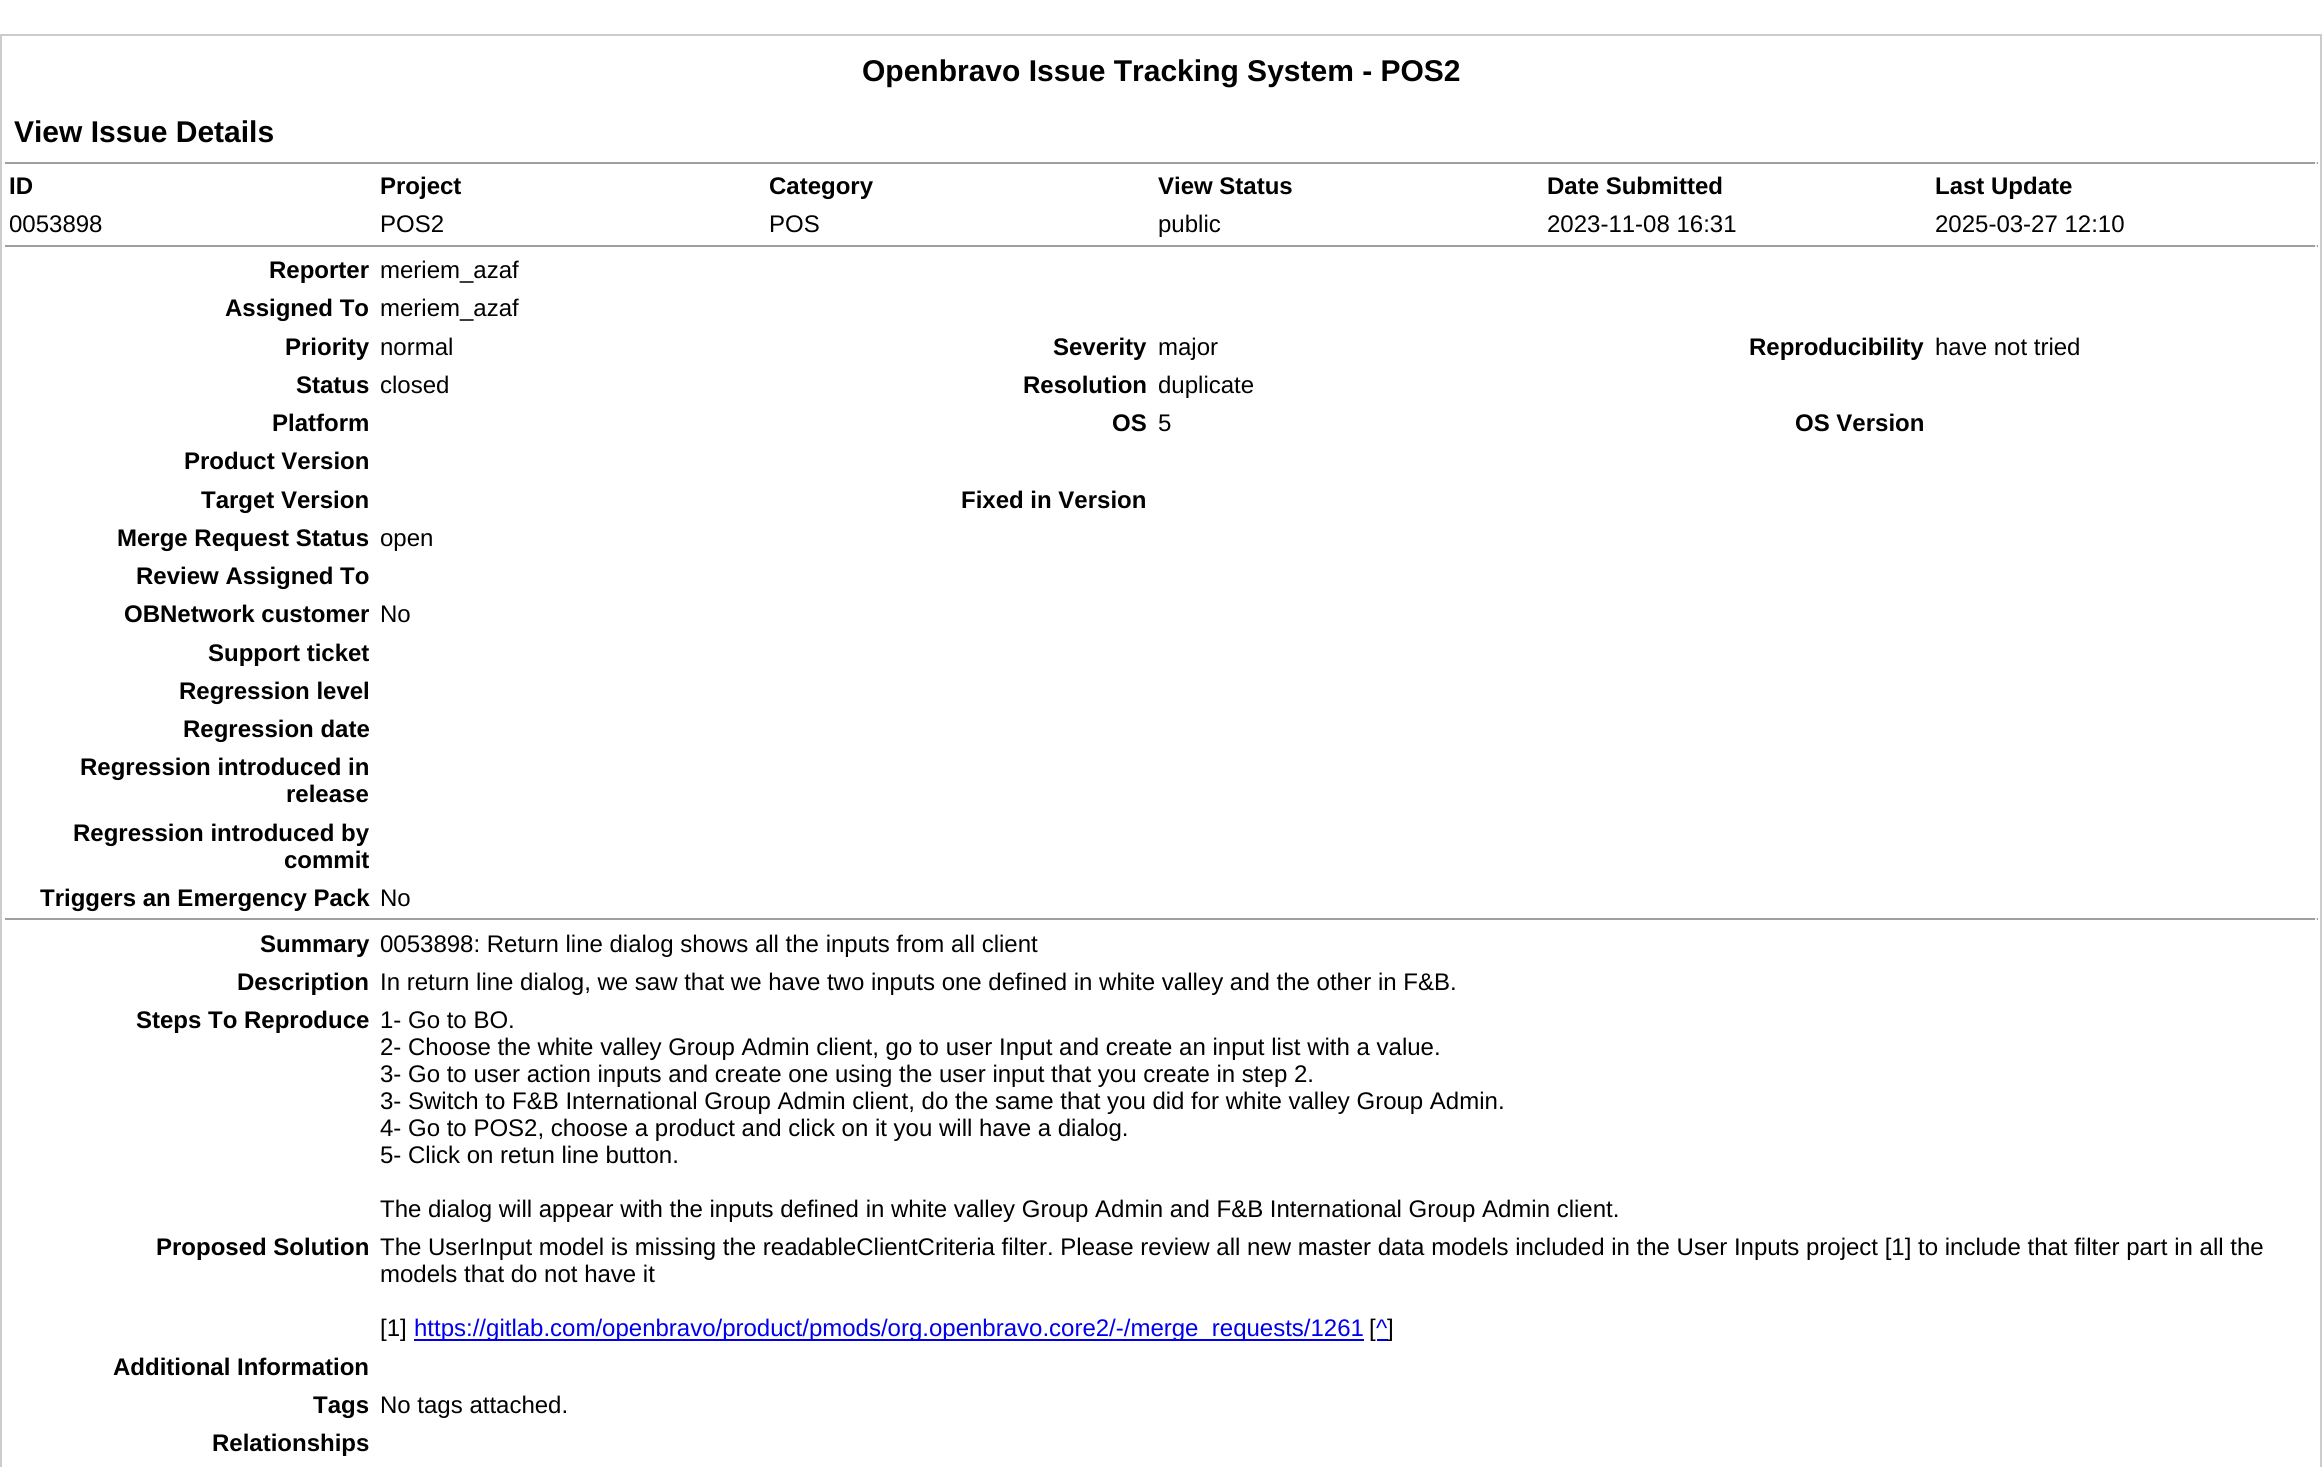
import math
import cairo

surface = cairo.ImageSurface(cairo.FORMAT_RGB24, 2322, 1467)
cr = cairo.Context(surface)
options = cairo.FontOptions()
options.set_hint_metrics(cairo.HINT_METRICS_OFF)
options.set_hint_style(cairo.HINT_STYLE_NONE)
cr.set_font_options(options)
cr.set_miter_limit(4)


def rgb(code):
    cr.set_source_rgb(*(v / 255 for v in bytes.fromhex(code[-6:])))


rgb("#ffffff")
cr.paint()
cr.rectangle(1, 35, 2320, 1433)
rgb("#cccccc")
cr.stroke()
for x, y, w, h, color in [
    (5, 162, 2313, 2, "#9f9f9f"),
    (2315, 162, 2, 2, "#eeeeee"),
    (5, 245, 2313, 2, "#9f9f9f"),
    (2315, 245, 2, 2, "#eeeeee"),
    (5, 918, 2313, 2, "#9f9f9f"),
    (2315, 918, 2, 2, "#eeeeee"),
    (414, 1339, 950, 2, "#0000ee"),
    (1377, 1339, 11, 2, "#0000ee"),
]:
    rgb(color)
    cr.rectangle(x, y, w, h)
    cr.fill()
cr.select_font_face("Liberation Sans", cairo.FONT_SLANT_NORMAL, cairo.FONT_WEIGHT_BOLD)
cr.set_font_size(30)
rgb("#000000")
cr.move_to(862, 81)
cr.show_text("Openbravo Issue Tracking System - POS2")
cr.move_to(14, 142)
cr.show_text("View Issue Details")
cr.set_font_size(24)
for x, y, s in [
    (9, 194, "ID"),
    (380, 194, "Project"),
    (769, 194, "Category"),
    (1158, 194, "View Status"),
    (1547, 194, "Date Submitted"),
    (1935, 194, "Last Update"),
]:
    cr.move_to(x, y)
    cr.show_text(s)
cr.select_font_face("Liberation Sans")
for x, y, s in [
    (9, 232, "0053898"),
    (380, 232, "POS2"),
    (769, 232, "POS"),
    (1158, 232, "public"),
    (1547, 232, "2023-11-08 16:31"),
    (1935, 232, "2025-03-27 12:10"),
]:
    cr.move_to(x, y)
    cr.show_text(s)
cr.select_font_face("Liberation Sans", cairo.FONT_SLANT_NORMAL, cairo.FONT_WEIGHT_BOLD)
cr.move_to(269, 278)
cr.show_text("Reporter")
cr.select_font_face("Liberation Sans")
cr.move_to(380, 278)
cr.show_text("meriem_azaf")
cr.select_font_face("Liberation Sans", cairo.FONT_SLANT_NORMAL, cairo.FONT_WEIGHT_BOLD)
cr.move_to(225, 316)
cr.show_text("Assigned To")
cr.select_font_face("Liberation Sans")
cr.move_to(380, 316)
cr.show_text("meriem_azaf")
cr.select_font_face("Liberation Sans", cairo.FONT_SLANT_NORMAL, cairo.FONT_WEIGHT_BOLD)
cr.move_to(285, 355)
cr.show_text("Priority")
cr.select_font_face("Liberation Sans")
cr.move_to(380, 355)
cr.show_text("normal")
cr.select_font_face("Liberation Sans", cairo.FONT_SLANT_NORMAL, cairo.FONT_WEIGHT_BOLD)
cr.move_to(1053, 355)
cr.show_text("Severity")
cr.select_font_face("Liberation Sans")
cr.move_to(1158, 355)
cr.show_text("major")
cr.select_font_face("Liberation Sans", cairo.FONT_SLANT_NORMAL, cairo.FONT_WEIGHT_BOLD)
cr.move_to(1749, 355)
cr.show_text("Reproducibility")
cr.select_font_face("Liberation Sans")
cr.move_to(1935, 355)
cr.show_text("have not tried")
cr.select_font_face("Liberation Sans", cairo.FONT_SLANT_NORMAL, cairo.FONT_WEIGHT_BOLD)
cr.move_to(296, 393)
cr.show_text("Status")
cr.select_font_face("Liberation Sans")
cr.move_to(380, 393)
cr.show_text("closed")
cr.select_font_face("Liberation Sans", cairo.FONT_SLANT_NORMAL, cairo.FONT_WEIGHT_BOLD)
cr.move_to(1023, 393)
cr.show_text("Resolution")
cr.select_font_face("Liberation Sans")
cr.move_to(1158, 393)
cr.show_text("duplicate")
cr.select_font_face("Liberation Sans", cairo.FONT_SLANT_NORMAL, cairo.FONT_WEIGHT_BOLD)
cr.move_to(272, 431)
cr.show_text("Platform")
cr.move_to(1112, 431)
cr.show_text("OS")
cr.select_font_face("Liberation Sans")
cr.move_to(1158, 431)
cr.show_text("5")
cr.select_font_face("Liberation Sans", cairo.FONT_SLANT_NORMAL, cairo.FONT_WEIGHT_BOLD)
for x, y, s in [
    (1795, 431, "OS Version"),
    (184, 469, "Product Version"),
    (201, 508, "Target Version"),
    (961, 508, "Fixed in Version"),
    (117, 546, "Merge Request Status"),
]:
    cr.move_to(x, y)
    cr.show_text(s)
cr.select_font_face("Liberation Sans")
cr.move_to(380, 546)
cr.show_text("open")
cr.select_font_face("Liberation Sans", cairo.FONT_SLANT_NORMAL, cairo.FONT_WEIGHT_BOLD)
cr.move_to(136, 584)
cr.show_text("Review Assigned To")
cr.move_to(124, 622)
cr.show_text("OBNetwork customer")
cr.select_font_face("Liberation Sans")
cr.move_to(380, 622)
cr.show_text("No")
cr.select_font_face("Liberation Sans", cairo.FONT_SLANT_NORMAL, cairo.FONT_WEIGHT_BOLD)
for x, y, s in [
    (208, 661, "Support ticket"),
    (179, 699, "Regression level"),
    (183, 737, "Regression date"),
    (80, 775, "Regression introduced in"),
    (286, 802, "release"),
    (73, 841, "Regression introduced by"),
    (284, 868, "commit"),
    (40, 906, "Triggers an Emergency Pack"),
]:
    cr.move_to(x, y)
    cr.show_text(s)
cr.select_font_face("Liberation Sans")
cr.move_to(380, 906)
cr.show_text("No")
cr.select_font_face("Liberation Sans", cairo.FONT_SLANT_NORMAL, cairo.FONT_WEIGHT_BOLD)
cr.move_to(260, 952)
cr.show_text("Summary")
cr.select_font_face("Liberation Sans")
cr.move_to(380, 952)
cr.show_text("0053898: Return line dialog shows all the inputs from all client")
cr.select_font_face("Liberation Sans", cairo.FONT_SLANT_NORMAL, cairo.FONT_WEIGHT_BOLD)
cr.move_to(237, 990)
cr.show_text("Description")
cr.select_font_face("Liberation Sans")
cr.move_to(380, 990)
cr.show_text("In return line dialog, we saw that we have two inputs one defined in white valley and the other in F&B.")
cr.select_font_face("Liberation Sans", cairo.FONT_SLANT_NORMAL, cairo.FONT_WEIGHT_BOLD)
cr.move_to(136, 1028)
cr.show_text("Steps To Reproduce")
cr.select_font_face("Liberation Sans")
for x, y, s in [
    (380, 1028, "1- Go to BO."),
    (380, 1055, "2- Choose the white valley Group Admin client, go to user Input and create an input list with a value."),
    (380, 1082, "3- Go to user action inputs and create one using the user input that you create in step 2."),
    (380, 1109, "3- Switch to F&B International Group Admin client, do the same that you did for white valley Group Admin."),
    (380, 1136, "4- Go to POS2, choose a product and click on it you will have a dialog."),
    (380, 1163, "5- Click on retun line button."),
    (380, 1217, "The dialog will appear with the inputs defined in white valley Group Admin and F&B International Group Admin client."),
]:
    cr.move_to(x, y)
    cr.show_text(s)
cr.select_font_face("Liberation Sans", cairo.FONT_SLANT_NORMAL, cairo.FONT_WEIGHT_BOLD)
cr.move_to(156, 1255)
cr.show_text("Proposed Solution")
cr.select_font_face("Liberation Sans")
for x, y, s in [
    (380, 1255, "The UserInput model is missing the readableClientCriteria filter. Please review all new master data models included in the User Inputs project [1] to include that filter part in all the"),
    (380, 1282, "models that do not have it"),
    (380, 1336, "[1]"),
]:
    cr.move_to(x, y)
    cr.show_text(s)
rgb("#0000ee")
cr.move_to(414, 1336)
cr.show_text("https://gitlab.com/openbravo/product/pmods/org.openbravo.core2/-/merge_requests/1261")
rgb("#000000")
cr.move_to(1369, 1336)
cr.show_text("[")
rgb("#0000ee")
cr.move_to(1376, 1336)
cr.show_text("^")
rgb("#000000")
cr.move_to(1387, 1336)
cr.show_text("]")
cr.select_font_face("Liberation Sans", cairo.FONT_SLANT_NORMAL, cairo.FONT_WEIGHT_BOLD)
cr.move_to(113, 1375)
cr.show_text("Additional Information")
cr.move_to(313, 1413)
cr.show_text("Tags")
cr.select_font_face("Liberation Sans")
cr.move_to(380, 1413)
cr.show_text("No tags attached.")
cr.select_font_face("Liberation Sans", cairo.FONT_SLANT_NORMAL, cairo.FONT_WEIGHT_BOLD)
cr.move_to(212, 1451)
cr.show_text("Relationships")
surface.write_to_png("page.png")
